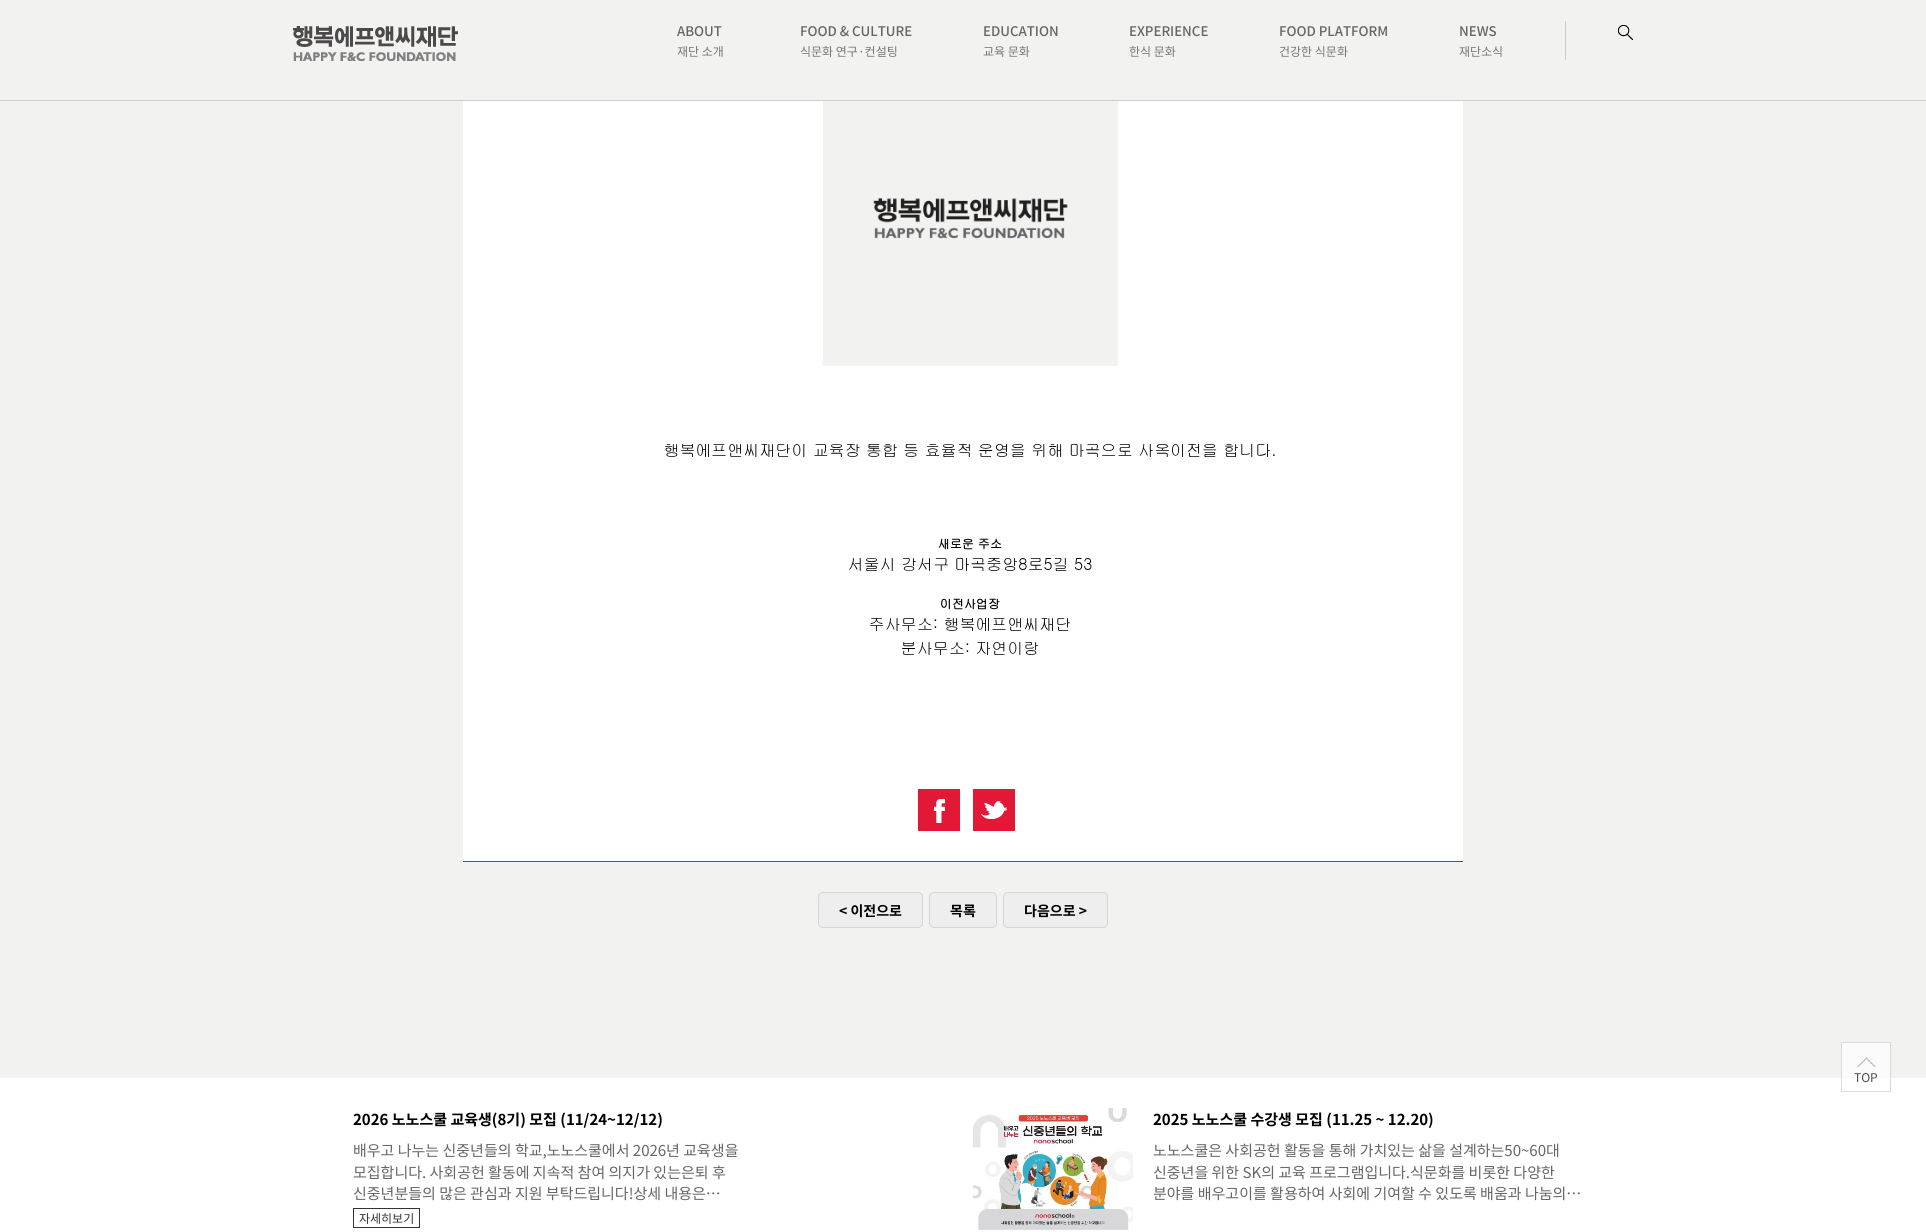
import math
import cairo

surface = cairo.ImageSurface(cairo.FORMAT_RGB24, 1926, 1232)
cr = cairo.Context(surface)
options = cairo.FontOptions()
options.set_hint_metrics(cairo.HINT_METRICS_OFF)
options.set_hint_style(cairo.HINT_STYLE_NONE)
cr.set_font_options(options)
cr.set_miter_limit(4)


def rgb(code):
    cr.set_source_rgb(*(v / 255 for v in bytes.fromhex(code[-6:])))


def rrect(x, y, w, h, r):
    cr.new_sub_path()
    for i, (u, v) in enumerate([(x + w - r, y + h - r), (x + r, y + h - r), (x + r, y + r), (x + w - r, y + r)]):
        cr.arc(u, v, r, i * math.pi / 2, (i + 1) * math.pi / 2)
    cr.close_path()


def image(path, x, y, w, h):
    cr.save()
    cr.set_source_surface(cairo.ImageSurface.create_from_png(path), x, y)
    cr.rectangle(x, y, w, h)
    cr.fill()
    cr.restore()


rgb("#ffffff")
cr.paint()
rgb("#f2f2f0")
cr.rectangle(0, 0, 1926, 100)
cr.fill()
rgb("#cccccc")
cr.rectangle(0, 100, 1926, 1)
cr.fill()
image("img/1.png", 293, 26, 165, 35)
cr.rectangle(1565, 21, 1, 39)
cr.fill()
image("img/2.png", 1618, 25, 15, 15)
for x, y, w, h, color in [
    (0, 101, 1926, 977, "#f2f2f0"),
    (1841, 1042, 50, 36, "#fbfbfb"),
    (463, 101, 1000, 760, "#ffffff"),
    (463, 861, 1000, 1, "#e21937"),
]:
    rgb(color)
    cr.rectangle(x, y, w, h)
    cr.fill()
image("img/3.png", 665, 101, 610, 554)
image("img/4.png", 918, 789, 42, 42)
image("img/5.png", 973, 789, 42, 42)
rgb("#eeeeee")
rrect(818.5, 892.5, 104, 35, 4.5)
cr.fill_preserve()
rgb("#d5d5d5")
cr.set_line_width(1)
cr.stroke()
rgb("#eeeeee")
rrect(929.5, 892.5, 67, 35, 4.5)
cr.fill_preserve()
rgb("#d5d5d5")
cr.stroke()
rgb("#eeeeee")
rrect(1003.5, 892.5, 104, 35, 4.5)
cr.fill_preserve()
rgb("#d5d5d5")
cr.stroke()
cr.rectangle(353.5, 1208.5, 66, 19)
rgb("#333333")
cr.stroke()
image("img/6.png", 973, 1108, 160, 124)
cr.rectangle(1841.5, 1042.5, 49, 49)
cr.set_source_rgba(0.8, 0.8, 0.8, 0.7)
cr.stroke()
image("img/7.png", 1857, 1057, 19, 10)
cr.select_font_face("Noto Sans KR Medium")
cr.set_font_size(13.25)
rgb("#666666")
cr.move_to(677, 36)
cr.show_text("ABOUT")
cr.select_font_face("Noto Sans KR")
cr.set_font_size(12)
rgb("#777777")
cr.move_to(677, 56)
cr.show_text("재단 소개")
cr.select_font_face("Noto Sans KR Medium")
cr.set_font_size(13.25)
rgb("#666666")
cr.move_to(800, 36)
cr.show_text("FOOD & CULTURE")
cr.select_font_face("Noto Sans KR")
cr.set_font_size(12)
rgb("#777777")
cr.move_to(800, 56)
cr.show_text("식문화 연구·컨설팅")
cr.select_font_face("Noto Sans KR Medium")
cr.set_font_size(13.25)
rgb("#666666")
cr.move_to(983, 36)
cr.show_text("EDUCATION")
cr.select_font_face("Noto Sans KR")
cr.set_font_size(12)
rgb("#777777")
cr.move_to(983, 56)
cr.show_text("교육 문화")
cr.select_font_face("Noto Sans KR Medium")
cr.set_font_size(13.25)
rgb("#666666")
cr.move_to(1129, 36)
cr.show_text("EXPERIENCE")
cr.select_font_face("Noto Sans KR")
cr.set_font_size(12)
rgb("#777777")
cr.move_to(1129, 56)
cr.show_text("한식 문화")
cr.select_font_face("Noto Sans KR Medium")
cr.set_font_size(13.25)
rgb("#666666")
cr.move_to(1279, 36)
cr.show_text("FOOD PLATFORM")
cr.select_font_face("Noto Sans KR")
cr.set_font_size(12)
rgb("#777777")
cr.move_to(1279, 56)
cr.show_text("건강한 식문화")
cr.select_font_face("Noto Sans KR Medium")
cr.set_font_size(13.25)
rgb("#666666")
cr.move_to(1459, 36)
cr.show_text("NEWS")
cr.select_font_face("Noto Sans KR")
cr.set_font_size(12)
rgb("#777777")
cr.move_to(1459, 56)
cr.show_text("재단소식")
cr.select_font_face("Noto Sans KR", cairo.FONT_SLANT_NORMAL, cairo.FONT_WEIGHT_BOLD)
cr.set_font_size(14)
rgb("#000000")
for x, y, s in [
    (839, 916, "< 이전으로"),
    (950, 916, "목록"),
    (1024, 916, "다음으로 >"),
]:
    cr.move_to(x, y)
    cr.show_text(s)
cr.set_font_size(15)
cr.move_to(353, 1125)
cr.show_text("2026 노노스쿨 교육생(8기) 모집 (11/24~12/12)")
cr.select_font_face("Noto Sans KR")
rgb("#666666")
for x, y, s in [
    (353, 1156, "배우고 나누는 신중년들의 학교,노노스쿨에서 2026년 교육생을"),
    (353, 1178, "모집합니다. 사회공헌 활동에 지속적 참여 의지가 있는은퇴 후"),
    (353, 1199, "신중년분들의 많은 관심과 지원 부탁드립니다!상세 내용은…"),
]:
    cr.move_to(x, y)
    cr.show_text(s)
cr.set_font_size(12)
rgb("#333333")
cr.move_to(359, 1223)
cr.show_text("자세히보기")
cr.select_font_face("Noto Sans KR", cairo.FONT_SLANT_NORMAL, cairo.FONT_WEIGHT_BOLD)
cr.set_font_size(15)
rgb("#000000")
cr.move_to(1153, 1125)
cr.show_text("2025 노노스쿨 수강생 모집 (11.25 ~ 12.20)")
cr.select_font_face("Noto Sans KR")
rgb("#666666")
for x, y, s in [
    (1153, 1156, "노노스쿨은 사회공헌 활동을 통해 가치있는 삶을 설계하는50~60대"),
    (1153, 1178, "신중년을 위한 SK의 교육 프로그램입니다.식문화를 비롯한 다양한"),
    (1153, 1199, "분야를 배우고이를 활용하여 사회에 기여할 수 있도록 배움과 나눔의…"),
]:
    cr.move_to(x, y)
    cr.show_text(s)
cr.set_font_size(12)
rgb("#4c4c4c")
cr.move_to(1854, 1082)
cr.show_text("TOP")
surface.write_to_png("page.png")
